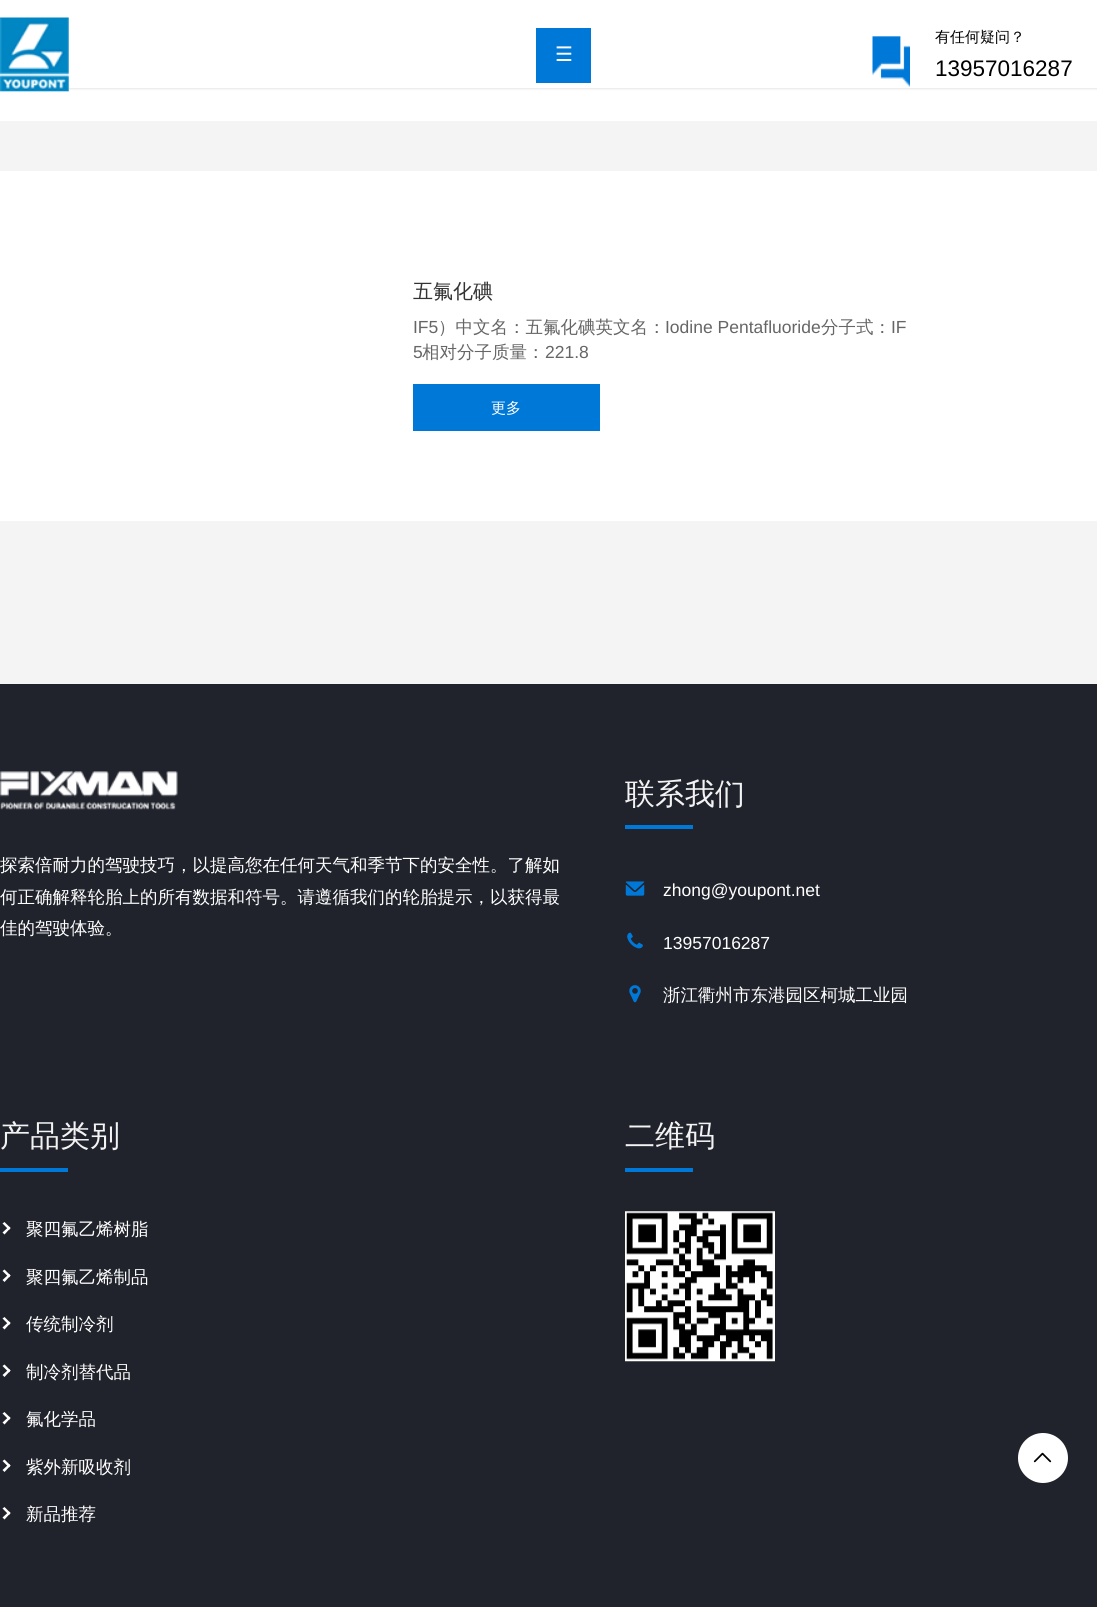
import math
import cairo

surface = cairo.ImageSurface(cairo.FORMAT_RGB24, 1097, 1607)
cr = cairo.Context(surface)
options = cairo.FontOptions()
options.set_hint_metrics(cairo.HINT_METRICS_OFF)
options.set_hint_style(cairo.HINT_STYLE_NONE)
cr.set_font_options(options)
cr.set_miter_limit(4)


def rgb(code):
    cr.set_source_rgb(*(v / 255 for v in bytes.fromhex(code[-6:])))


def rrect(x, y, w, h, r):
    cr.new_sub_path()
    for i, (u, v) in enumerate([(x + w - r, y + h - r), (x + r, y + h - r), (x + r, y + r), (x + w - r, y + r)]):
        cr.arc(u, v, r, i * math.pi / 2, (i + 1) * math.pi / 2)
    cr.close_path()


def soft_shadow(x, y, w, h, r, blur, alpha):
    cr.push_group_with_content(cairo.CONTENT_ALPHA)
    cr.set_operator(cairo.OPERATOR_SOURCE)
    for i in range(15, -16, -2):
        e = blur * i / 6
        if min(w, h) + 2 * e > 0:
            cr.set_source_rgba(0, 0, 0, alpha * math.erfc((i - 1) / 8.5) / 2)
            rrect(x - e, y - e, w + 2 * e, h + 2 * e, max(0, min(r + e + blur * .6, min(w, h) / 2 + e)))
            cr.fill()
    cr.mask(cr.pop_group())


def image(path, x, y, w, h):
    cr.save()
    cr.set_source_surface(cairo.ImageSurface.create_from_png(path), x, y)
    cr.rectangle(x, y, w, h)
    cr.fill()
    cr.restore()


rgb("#f4f4f4")
cr.paint()
rgb("#ffffff")
cr.rectangle(0, 88, 1097, 33)
cr.fill()
rgb("#000000")
soft_shadow(0, 1, 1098, 88, 0, 1, 0.1)
rgb("#ffffff")
cr.rectangle(0, 0, 1097, 88)
cr.fill()
image("img/1.png", 0, 17, 69, 75)
rgb("#0078d7")
cr.rectangle(536, 28, 55, 55)
cr.fill()
image("img/2.png", 872, 36, 38, 51)
for x, y, w, h, color in [
    (0, 171, 1097, 350, "#ffffff"),
    (413, 384, 187, 47, "#0078d7"),
    (0, 684, 1097, 923, "#20232c"),
]:
    rgb(color)
    cr.rectangle(x, y, w, h)
    cr.fill()
image("img/3.png", 0, 771, 178, 39)
rgb("#0078d7")
cr.rectangle(625, 825, 68, 4)
cr.fill()
image("img/4.png", 625, 881, 20, 15)
image("img/5.png", 627, 932, 16, 17)
image("img/6.png", 629, 985, 12, 18)
cr.rectangle(0, 1168, 68, 4)
cr.fill()
rgb("#ffffff")
cr.new_path()
cr.move_to(2.5, 1223.5)
cr.line_to(4.5, 1222)
cr.line_to(10.5, 1228)
cr.line_to(9, 1230)
cr.close_path()
cr.fill()
cr.new_path()
cr.move_to(2.5, 1232.5)
cr.line_to(9, 1226.5)
cr.line_to(10.5, 1228)
cr.line_to(4.5, 1234.5)
cr.close_path()
cr.move_to(2.5, 1271)
cr.line_to(4.5, 1269.5)
cr.line_to(10.5, 1275.5)
cr.line_to(9, 1277.5)
cr.close_path()
cr.fill()
cr.new_path()
cr.move_to(2.5, 1280)
cr.line_to(9, 1274)
cr.line_to(10.5, 1275.5)
cr.line_to(4.5, 1282)
cr.close_path()
cr.move_to(2.5, 1318.5)
cr.line_to(4.5, 1317)
cr.line_to(10.5, 1323)
cr.line_to(9, 1325)
cr.close_path()
cr.fill()
cr.new_path()
cr.move_to(2.5, 1327.5)
cr.line_to(9, 1321.5)
cr.line_to(10.5, 1323)
cr.line_to(4.5, 1329.5)
cr.close_path()
cr.move_to(2.5, 1366)
cr.line_to(4.5, 1364.5)
cr.line_to(10.5, 1370.5)
cr.line_to(9, 1372.5)
cr.close_path()
cr.fill()
cr.new_path()
cr.move_to(2.5, 1375)
cr.line_to(9, 1369)
cr.line_to(10.5, 1370.5)
cr.line_to(4.5, 1377)
cr.close_path()
cr.move_to(2.5, 1413.5)
cr.line_to(4.5, 1412)
cr.line_to(10.5, 1418)
cr.line_to(9, 1420)
cr.close_path()
cr.fill()
cr.new_path()
cr.move_to(2.5, 1422.5)
cr.line_to(9, 1416.5)
cr.line_to(10.5, 1418)
cr.line_to(4.5, 1424.5)
cr.close_path()
cr.move_to(2.5, 1461)
cr.line_to(4.5, 1459.5)
cr.line_to(10.5, 1465.5)
cr.line_to(9, 1467.5)
cr.close_path()
cr.fill()
cr.new_path()
cr.move_to(2.5, 1470)
cr.line_to(9, 1464)
cr.line_to(10.5, 1465.5)
cr.line_to(4.5, 1472)
cr.close_path()
cr.move_to(2.5, 1508.5)
cr.line_to(4.5, 1507)
cr.line_to(10.5, 1513)
cr.line_to(9, 1515)
cr.close_path()
cr.fill()
cr.new_path()
cr.move_to(2.5, 1517.5)
cr.line_to(9, 1511.5)
cr.line_to(10.5, 1513)
cr.line_to(4.5, 1519.5)
cr.close_path()
cr.fill()
rgb("#0078d7")
cr.rectangle(625, 1168, 68, 4)
cr.fill()
image("img/7.png", 625, 1211, 150, 151)
rgb("#ffffff")
cr.arc(1043, 1458, 25, 0, 2 * math.pi)
cr.fill()
image("img/8.png", 1033, 1452, 19, 11)
cr.select_font_face("DejaVu Sans")
cr.set_font_size(20)
cr.move_to(555, 61)
cr.show_text("☰")
cr.select_font_face("WenQuanYi Zen Hei Medium")
cr.set_font_size(15)
rgb("#000000")
cr.move_to(935, 42)
cr.show_text("有任何疑问？")
cr.select_font_face("Liberation Sans")
cr.set_font_size(22.5)
cr.move_to(935, 76)
cr.show_text("13957016287")
cr.select_font_face("WenQuanYi Zen Hei Medium")
cr.set_font_size(20)
rgb("#333333")
cr.move_to(413, 298)
cr.show_text("五氟化碘")
cr.select_font_face("Liberation Sans")
cr.set_font_size(17.5)
rgb("#666666")
cr.move_to(413, 333)
cr.show_text("IF5")
cr.select_font_face("WenQuanYi Zen Hei Medium")
cr.move_to(438, 333)
cr.show_text("）中文名：五氟化碘英文名：")
cr.select_font_face("Liberation Sans")
cr.move_to(665, 333)
cr.show_text("Iodine Pentafluoride")
cr.select_font_face("WenQuanYi Zen Hei Medium")
cr.move_to(821, 333)
cr.show_text("分子式：")
cr.select_font_face("Liberation Sans")
cr.move_to(891, 333)
cr.show_text("IF")
cr.move_to(413, 358)
cr.show_text("5")
cr.select_font_face("WenQuanYi Zen Hei Medium")
cr.move_to(422, 358)
cr.show_text("相对分子质量：")
cr.select_font_face("Liberation Sans")
cr.move_to(545, 358)
cr.show_text("221.8")
cr.select_font_face("WenQuanYi Zen Hei Medium")
cr.set_font_size(15)
rgb("#ffffff")
cr.move_to(491, 413)
cr.show_text("更多")
cr.set_font_size(17.5)
for x, y, s in [
    (0, 871, "探索倍耐力的驾驶技巧，以提高您在任何天气和季节下的安全性。了解如"),
    (0, 903, "何正确解释轮胎上的所有数据和符号。请遵循我们的轮胎提示，以获得最"),
    (0, 934, "佳的驾驶体验。"),
]:
    cr.move_to(x, y)
    cr.show_text(s)
cr.set_font_size(30)
rgb("#f3f3f3")
cr.move_to(625, 804)
cr.show_text("联系我们")
cr.select_font_face("Liberation Sans")
cr.set_font_size(17.5)
rgb("#ffffff")
cr.move_to(663, 896)
cr.show_text("zhong@youpont.net")
cr.move_to(663, 949)
cr.show_text("13957016287")
cr.select_font_face("WenQuanYi Zen Hei Medium")
cr.move_to(663, 1001)
cr.show_text("浙江衢州市东港园区柯城工业园")
cr.set_font_size(30)
rgb("#f3f3f3")
cr.move_to(0, 1146)
cr.show_text("产品类别")
cr.set_font_size(17.5)
rgb("#ffffff")
for x, y, s in [
    (26, 1235, "聚四氟乙烯树脂"),
    (26, 1283, "聚四氟乙烯制品"),
    (26, 1330, "传统制冷剂"),
    (26, 1378, "制冷剂替代品"),
    (26, 1425, "氟化学品"),
    (26, 1473, "紫外新吸收剂"),
    (26, 1520, "新品推荐"),
]:
    cr.move_to(x, y)
    cr.show_text(s)
cr.set_font_size(30)
rgb("#f3f3f3")
cr.move_to(625, 1146)
cr.show_text("二维码")
surface.write_to_png("page.png")
